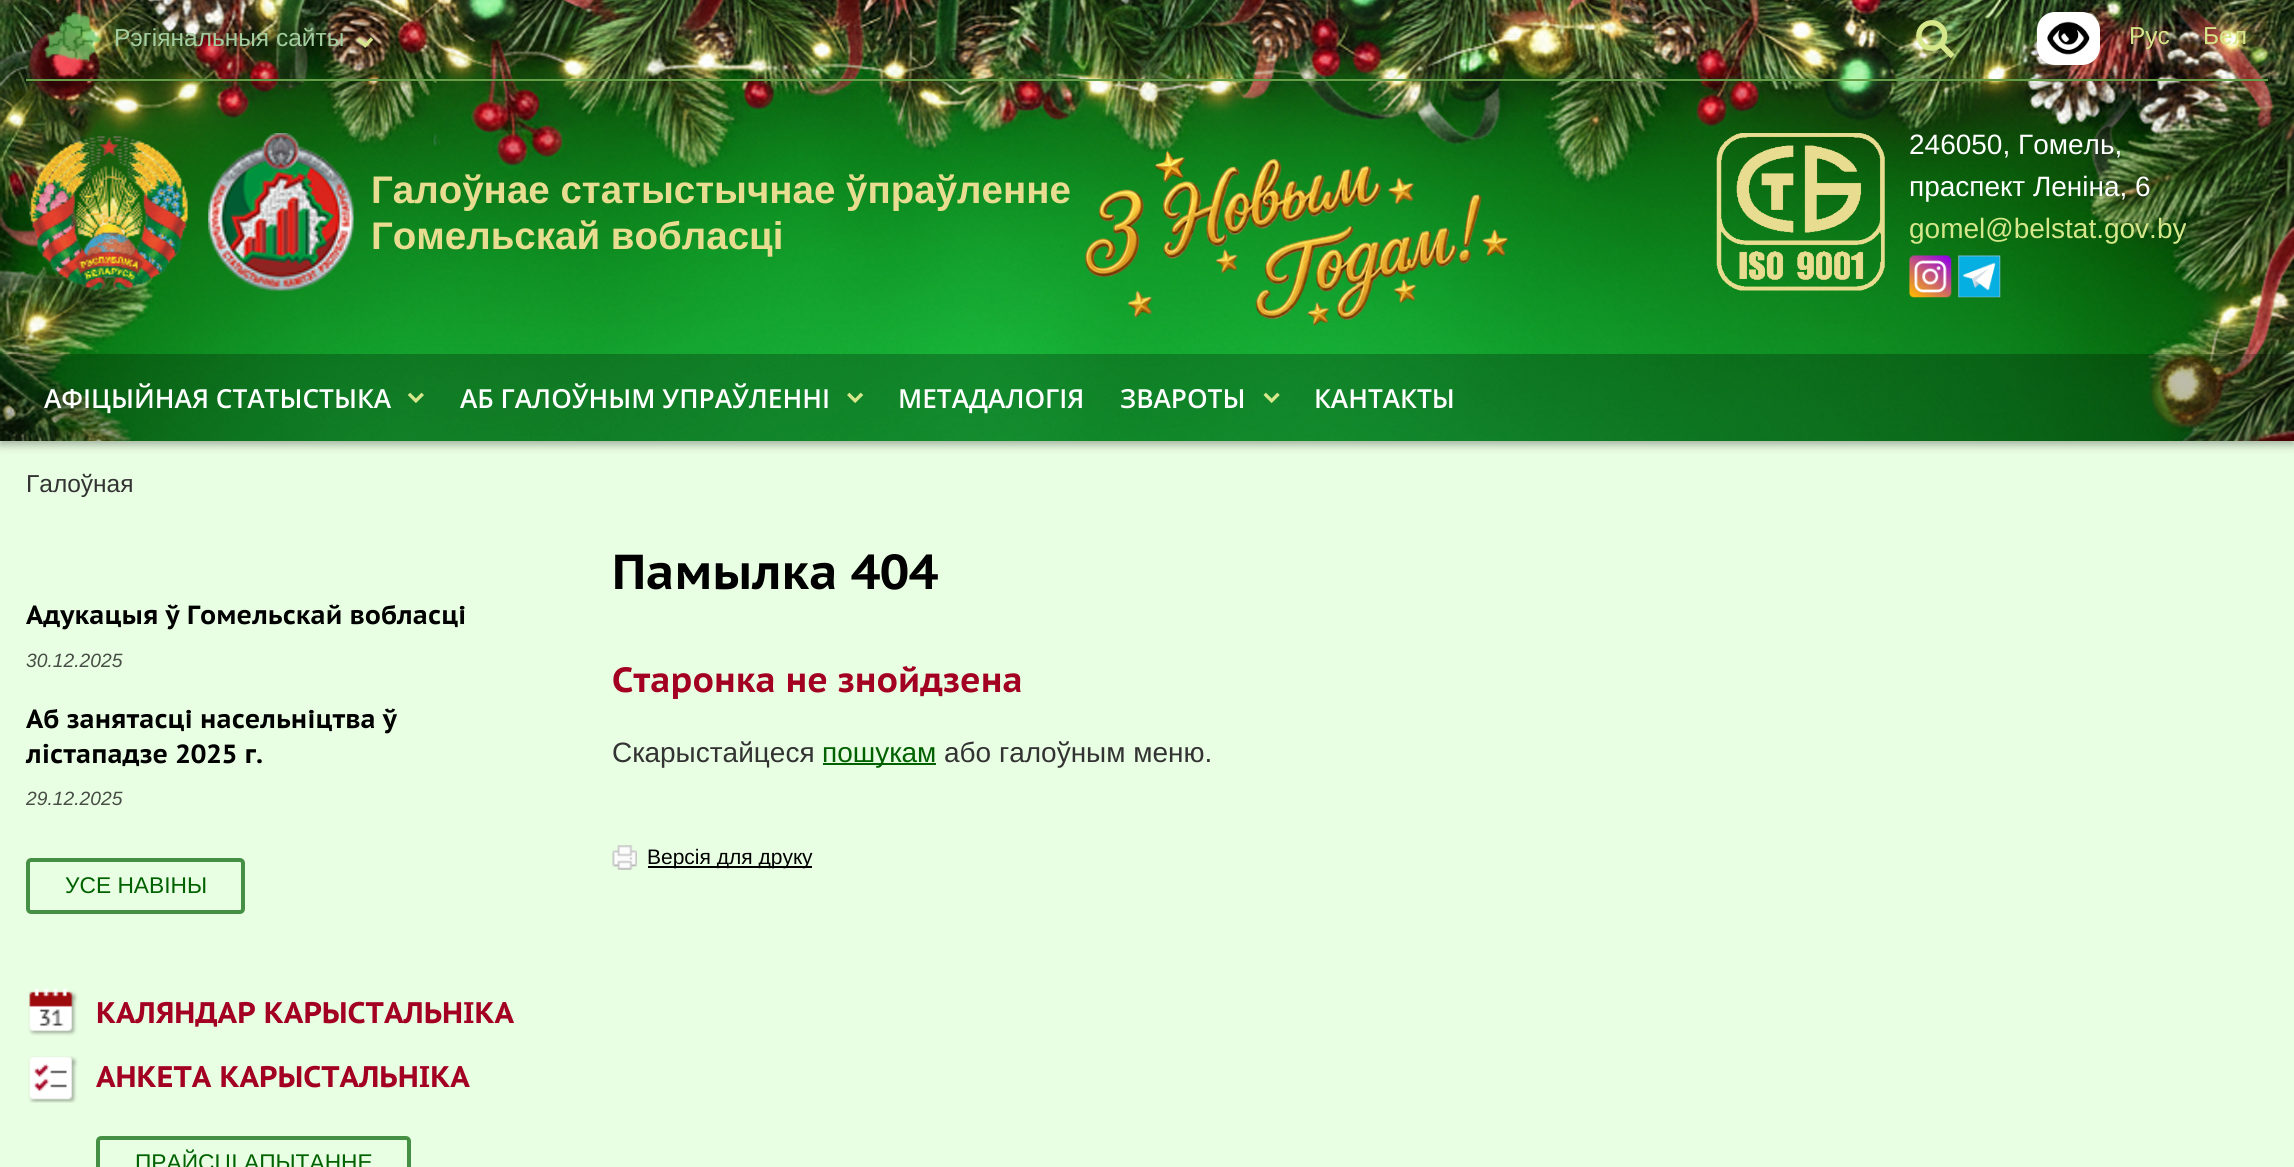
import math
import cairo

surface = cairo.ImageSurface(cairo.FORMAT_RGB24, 2294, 1167)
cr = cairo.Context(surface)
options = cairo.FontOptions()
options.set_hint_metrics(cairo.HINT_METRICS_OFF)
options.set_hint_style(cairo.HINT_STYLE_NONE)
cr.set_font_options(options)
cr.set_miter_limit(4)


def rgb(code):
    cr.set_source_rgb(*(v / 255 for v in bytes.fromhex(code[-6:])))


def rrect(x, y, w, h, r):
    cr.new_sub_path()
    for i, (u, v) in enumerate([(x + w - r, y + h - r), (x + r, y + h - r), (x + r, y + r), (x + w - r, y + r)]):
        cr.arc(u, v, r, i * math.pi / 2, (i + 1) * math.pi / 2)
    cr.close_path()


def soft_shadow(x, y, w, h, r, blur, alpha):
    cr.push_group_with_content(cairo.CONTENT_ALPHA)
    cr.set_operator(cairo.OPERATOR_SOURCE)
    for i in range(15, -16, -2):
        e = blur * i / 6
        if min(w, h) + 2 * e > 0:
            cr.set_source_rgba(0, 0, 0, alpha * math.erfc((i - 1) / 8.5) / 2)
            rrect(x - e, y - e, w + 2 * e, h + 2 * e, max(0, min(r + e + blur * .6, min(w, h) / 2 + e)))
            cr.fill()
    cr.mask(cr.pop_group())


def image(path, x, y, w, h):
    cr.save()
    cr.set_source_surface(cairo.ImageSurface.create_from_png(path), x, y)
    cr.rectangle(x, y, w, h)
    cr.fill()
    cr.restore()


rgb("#e9ffe3")
cr.paint()
rgb("#000000")
soft_shadow(0, 4, 2294, 441, 0, 4.5, 0.3)
image("img/1.png", 0, 0, 2294, 441)
rgb("#679e49")
cr.rectangle(26, 79, 2242, 2)
cr.fill()
image("img/2.png", 43, 12, 59, 50)
image("img/3.png", 357, 37, 17, 11)
image("img/4.png", 1916, 20, 39, 39)
rgb("#ffffff")
rrect(2037, 12, 63, 53, 18)
cr.fill()
image("img/5.png", 2047, 21, 43, 34)
image("img/6.png", 29, 136, 160, 155)
image("img/7.png", 208, 133, 146, 158)
image("img/8.png", 1084, 150, 425, 176)
image("img/9.png", 1716, 133, 169, 158)
image("img/10.png", 1909, 255, 43, 43)
image("img/11.png", 1958, 255, 43, 43)
cr.set_source_rgba(0, 0, 0, 0.25)
cr.rectangle(0, 354, 2294, 87)
cr.fill()
image("img/12.png", 407, 392, 17, 12)
image("img/13.png", 847, 392, 17, 12)
image("img/14.png", 1263, 392, 17, 12)
rrect(28, 860, 215, 52, 3)
rgb("#459044")
cr.set_line_width(4)
cr.stroke()
image("img/15.png", 28, 988, 50, 48)
image("img/16.png", 28, 1056, 50, 47)
rrect(98, 1138, 311, 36, 3)
cr.stroke()
rgb("#006100")
cr.rectangle(823, 763, 113, 2)
cr.fill()
image("img/17.png", 612, 845, 25, 25)
rgb("#000000")
cr.rectangle(648, 866, 164, 2)
cr.fill()
cr.select_font_face("Liberation Sans")
cr.set_font_size(24.5)
rgb("#a3cea0")
cr.move_to(114, 46)
cr.show_text("Рэгіянальныя сайты")
rgb("#d6e78b")
cr.move_to(2129, 44)
cr.show_text("Рус")
cr.move_to(2203, 44)
cr.show_text("Бел")
cr.select_font_face("Liberation Sans", cairo.FONT_SLANT_NORMAL, cairo.FONT_WEIGHT_BOLD)
cr.set_font_size(38.5)
rgb("#e7dc90")
cr.move_to(371, 203)
cr.show_text("Галоўнае статыстычнае ўпраўленне")
cr.move_to(371, 249)
cr.show_text("Гомельскай вобласці")
cr.select_font_face("Liberation Sans")
cr.set_font_size(28)
rgb("#ffffff")
cr.move_to(1909, 154)
cr.show_text("246050, Гомель,")
cr.move_to(1909, 196)
cr.show_text("праспект Леніна, 6")
rgb("#d6e78b")
cr.move_to(1909, 238)
cr.show_text("gomel@belstat.gov.by")
cr.select_font_face("Open Sans SemiBold")
cr.set_font_size(26.25)
rgb("#ffffff")
for x, y, s in [
    (44, 408, "АФІЦЫЙНАЯ СТАТЫСТЫКА"),
    (460, 408, "АБ ГАЛОЎНЫМ УПРАЎЛЕННІ"),
    (898, 408, "МЕТАДАЛОГІЯ"),
    (1120, 408, "ЗВАРОТЫ"),
    (1314, 408, "КАНТАКТЫ"),
]:
    cr.move_to(x, y)
    cr.show_text(s)
cr.select_font_face("Liberation Sans")
cr.set_font_size(24.5)
rgb("#333333")
cr.move_to(26, 492)
cr.show_text("Галоўная")
cr.select_font_face("PT Sans Caption", cairo.FONT_SLANT_NORMAL, cairo.FONT_WEIGHT_BOLD)
cr.set_font_size(26.25)
rgb("#000000")
cr.move_to(26, 624)
cr.show_text("Адукацыя ў Гомельскай вобласці")
cr.select_font_face("Liberation Sans", cairo.FONT_SLANT_ITALIC)
cr.set_font_size(19.25)
rgb("#464d44")
cr.move_to(26, 667)
cr.show_text("30.12.2025")
cr.select_font_face("PT Sans Caption", cairo.FONT_SLANT_NORMAL, cairo.FONT_WEIGHT_BOLD)
cr.set_font_size(26.25)
rgb("#000000")
cr.move_to(26, 728)
cr.show_text("Аб занятасці насельніцтва ў")
cr.move_to(26, 763)
cr.show_text("лiстападзе 2025 г.")
cr.select_font_face("Liberation Sans", cairo.FONT_SLANT_ITALIC)
cr.set_font_size(19.25)
rgb("#464d44")
cr.move_to(26, 805)
cr.show_text("29.12.2025")
cr.select_font_face("Liberation Sans")
cr.set_font_size(22.75)
rgb("#006100")
cr.move_to(65, 893)
cr.show_text("УСЕ НАВІНЫ")
cr.select_font_face("PT Sans Caption", cairo.FONT_SLANT_NORMAL, cairo.FONT_WEIGHT_BOLD)
cr.set_font_size(29.75)
rgb("#a30021")
cr.move_to(96, 1023)
cr.show_text("КАЛЯНДАР КАРЫСТАЛЬНІКА")
cr.move_to(96, 1087)
cr.show_text("АНКЕТА КАРЫСТАЛЬНІКА")
cr.select_font_face("Liberation Sans")
cr.set_font_size(22.75)
rgb("#006100")
cr.move_to(135, 1170)
cr.show_text("ПРАЙСЦІ АПЫТАННЕ")
cr.select_font_face("PT Sans Caption", cairo.FONT_SLANT_NORMAL, cairo.FONT_WEIGHT_BOLD)
cr.set_font_size(49)
rgb("#000000")
cr.move_to(612, 589)
cr.show_text("Памылка 404")
cr.set_font_size(35)
rgb("#a30021")
cr.move_to(612, 692)
cr.show_text("Старонка не знойдзена")
cr.select_font_face("Liberation Sans")
cr.set_font_size(28)
rgb("#333333")
cr.move_to(612, 762)
cr.show_text("Скарыстайцеся")
rgb("#006100")
cr.move_to(822, 762)
cr.show_text("пошукам")
rgb("#333333")
cr.move_to(944, 762)
cr.show_text("або галоўным меню.")
cr.set_font_size(21)
rgb("#000000")
cr.move_to(647, 864)
cr.show_text("Версія для друку")
surface.write_to_png("page.png")
